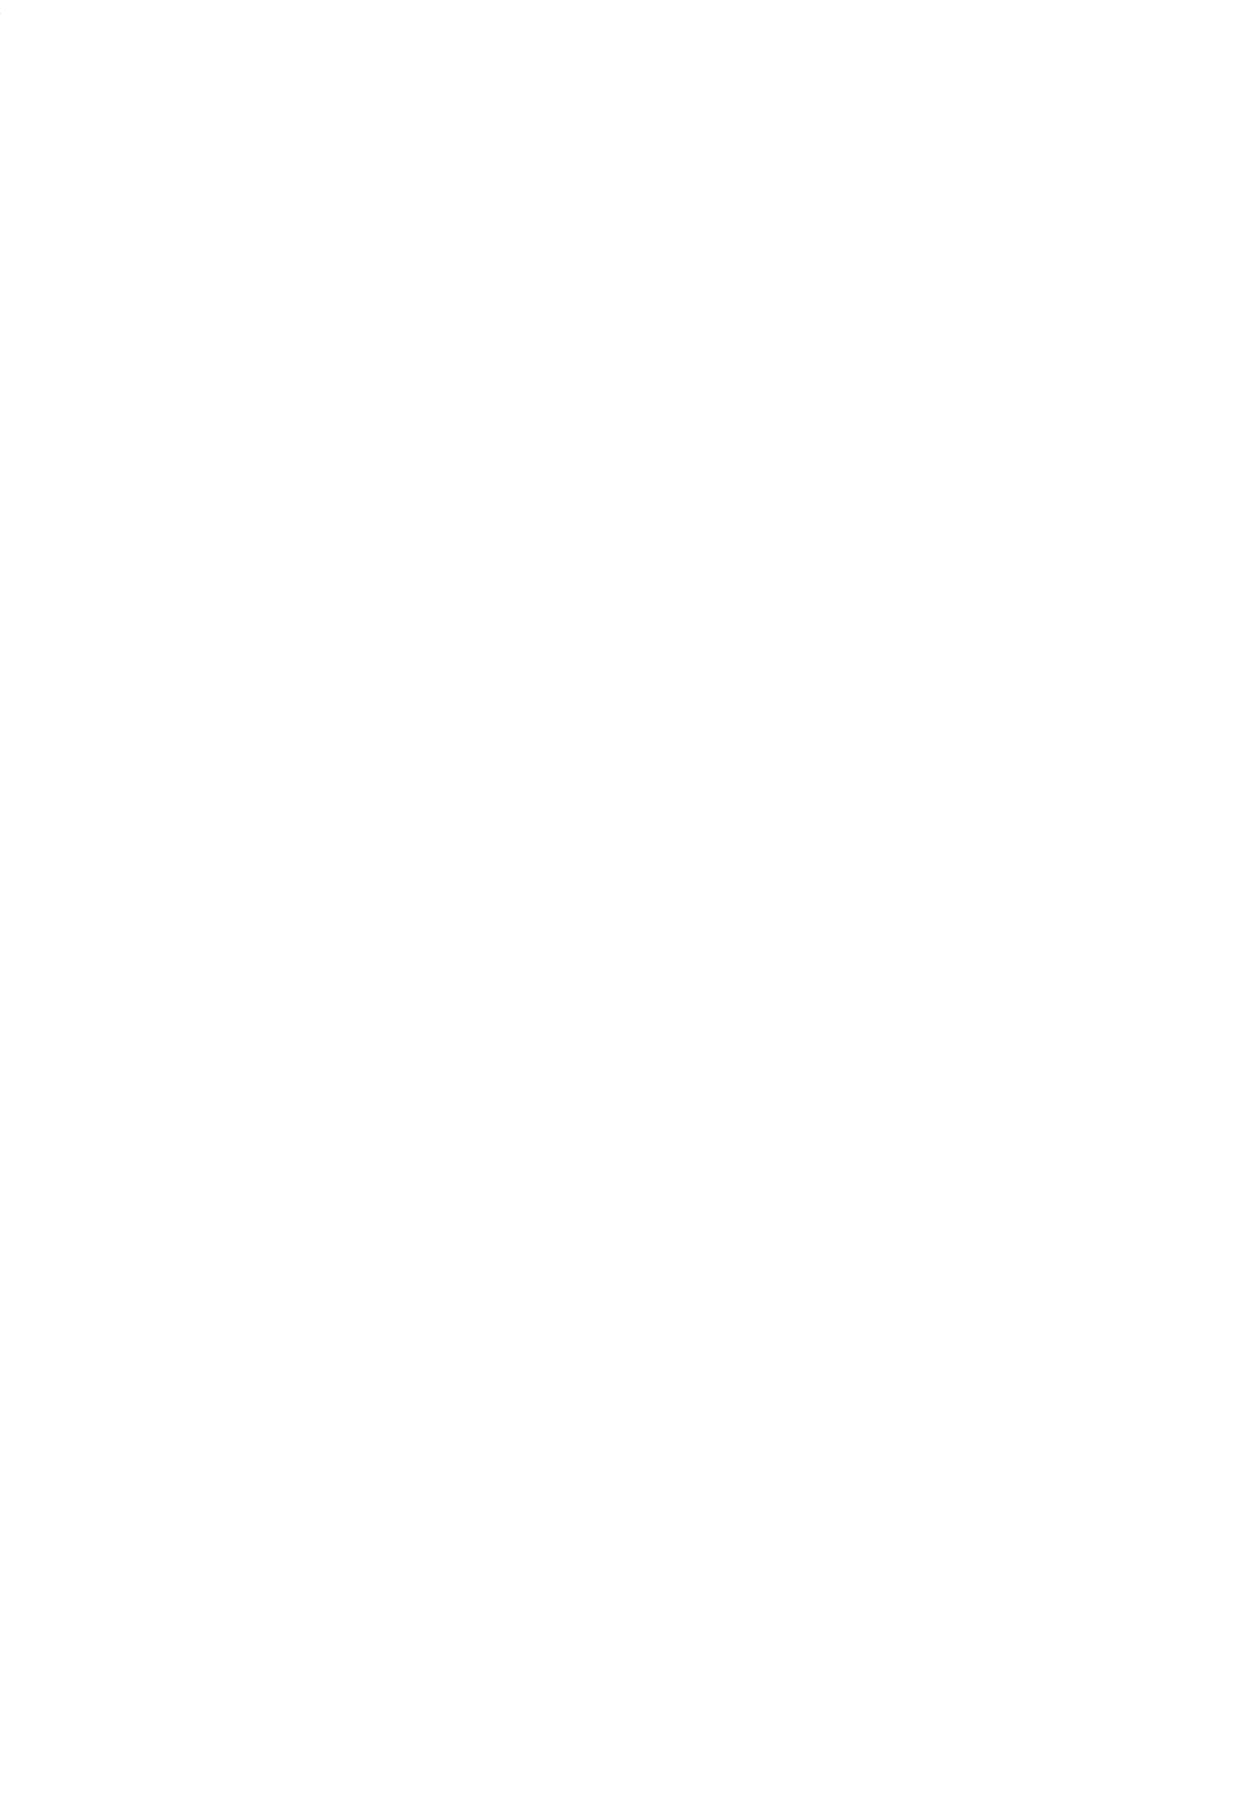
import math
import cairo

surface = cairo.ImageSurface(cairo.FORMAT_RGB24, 1260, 1796)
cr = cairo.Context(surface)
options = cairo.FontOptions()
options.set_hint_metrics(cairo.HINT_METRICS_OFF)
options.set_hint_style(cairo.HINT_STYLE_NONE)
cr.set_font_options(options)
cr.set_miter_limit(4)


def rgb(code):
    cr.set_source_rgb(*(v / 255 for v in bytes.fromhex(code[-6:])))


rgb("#ffffff")
cr.paint()
rgb("#dee0fa")
cr.rectangle(0, 13, 1, 1)
cr.fill()
surface.write_to_png("page.png")
